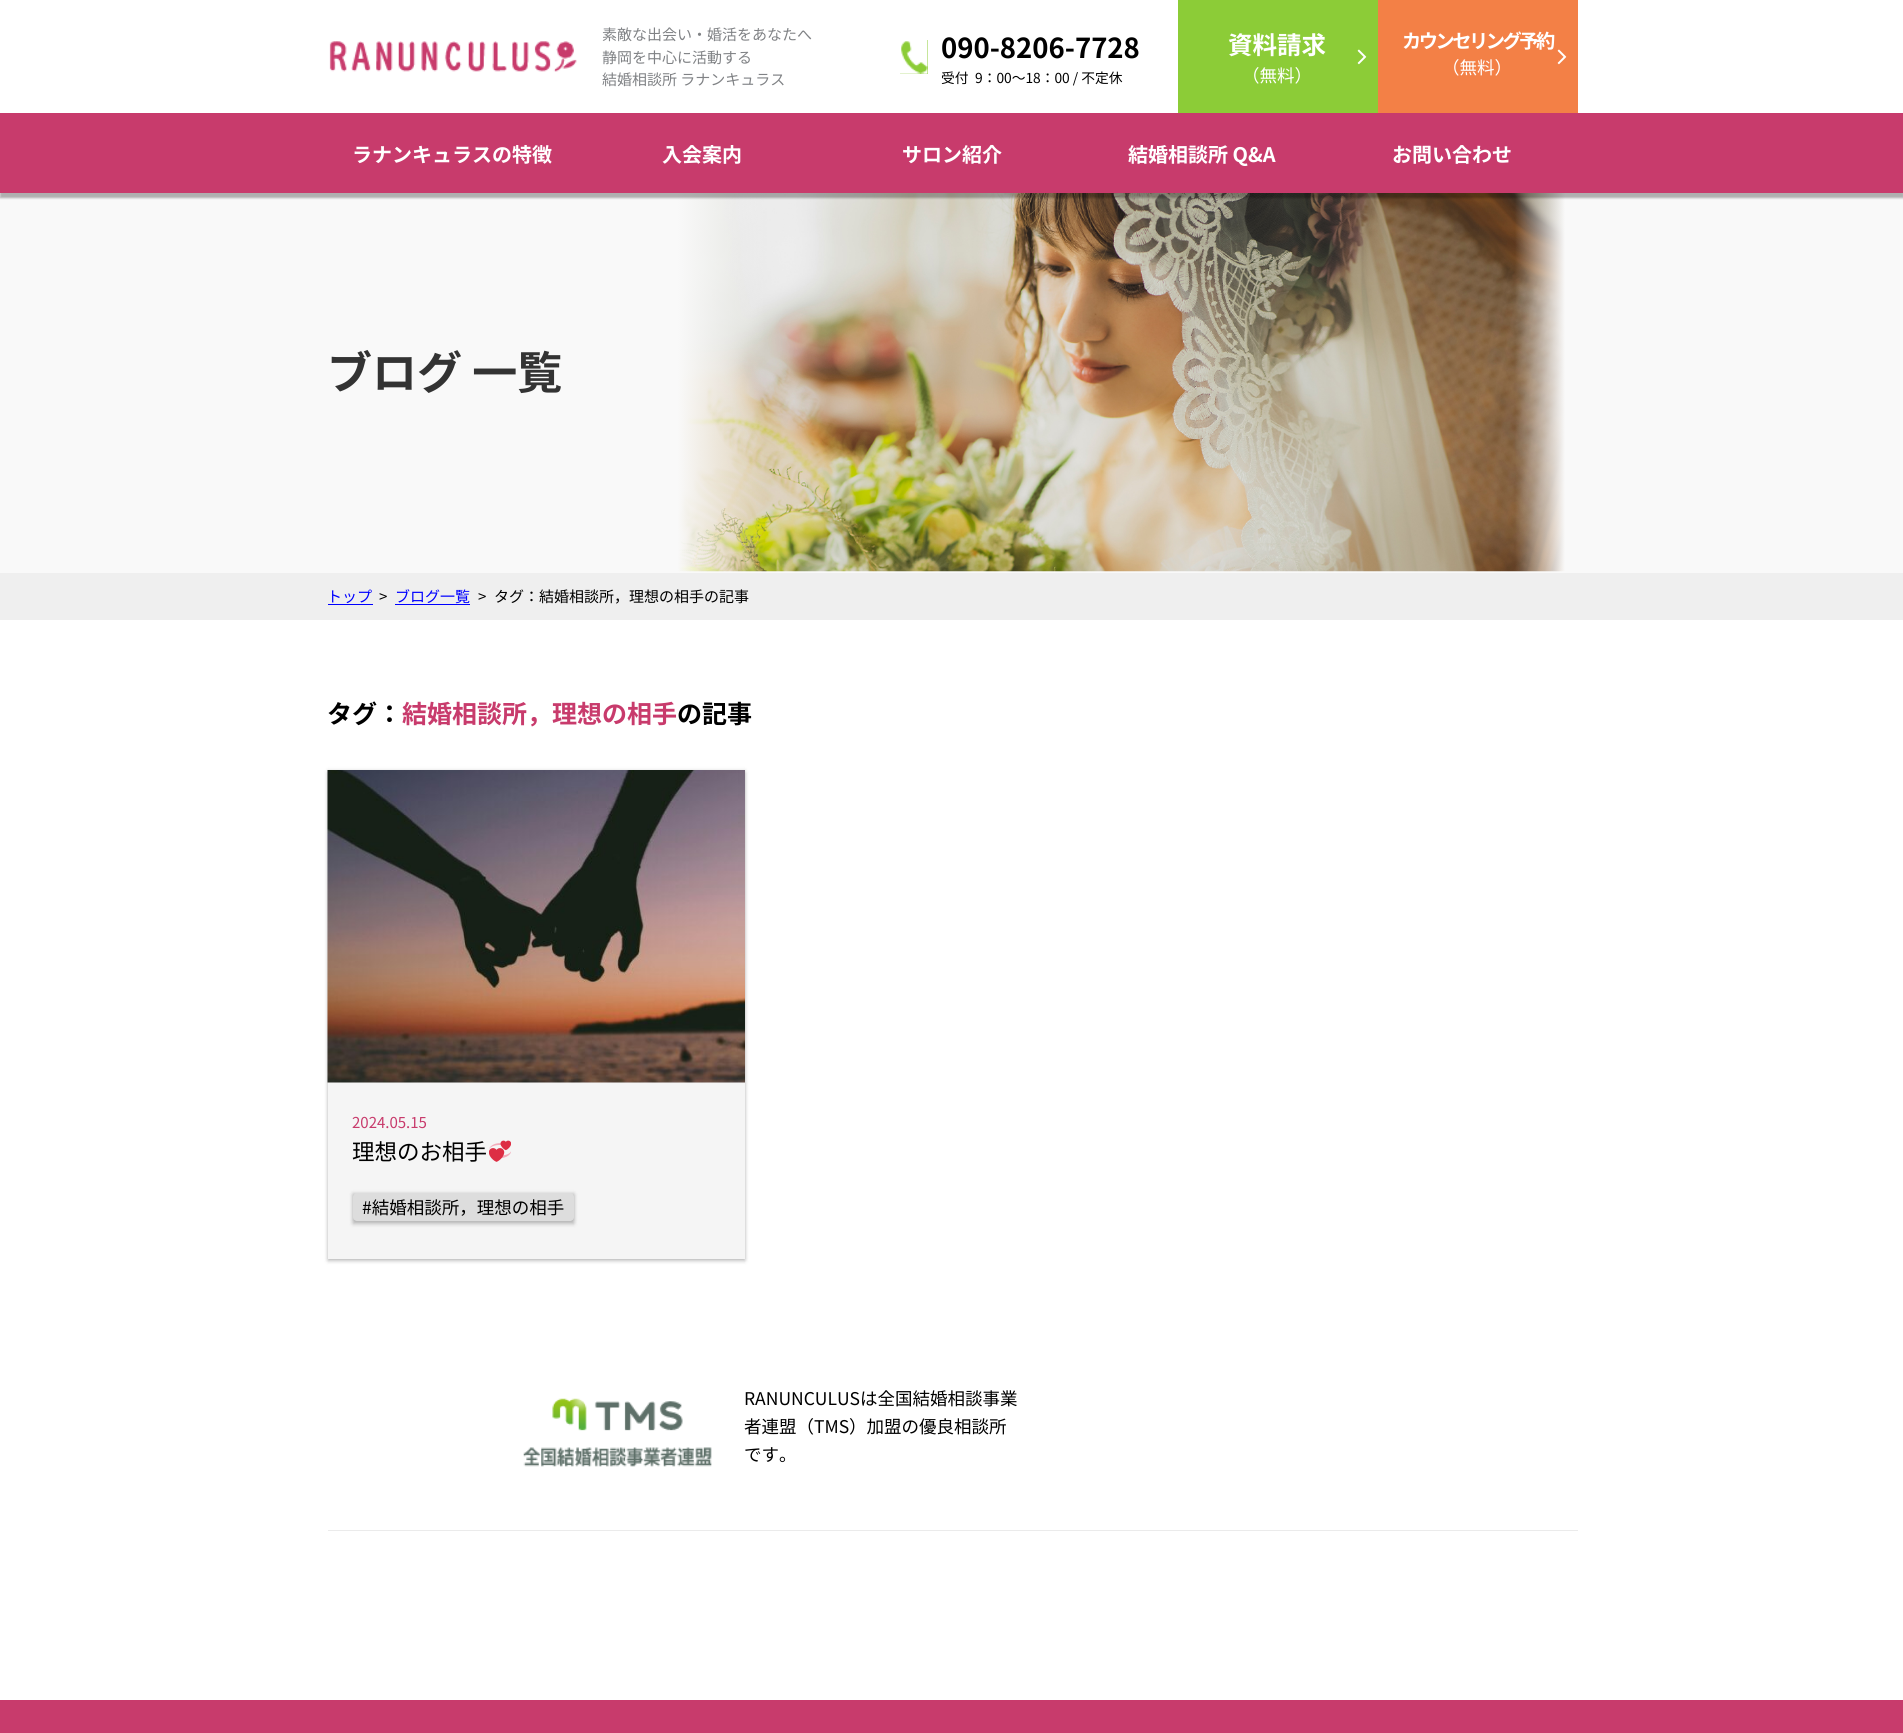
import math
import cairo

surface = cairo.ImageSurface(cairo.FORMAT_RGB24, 1903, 1733)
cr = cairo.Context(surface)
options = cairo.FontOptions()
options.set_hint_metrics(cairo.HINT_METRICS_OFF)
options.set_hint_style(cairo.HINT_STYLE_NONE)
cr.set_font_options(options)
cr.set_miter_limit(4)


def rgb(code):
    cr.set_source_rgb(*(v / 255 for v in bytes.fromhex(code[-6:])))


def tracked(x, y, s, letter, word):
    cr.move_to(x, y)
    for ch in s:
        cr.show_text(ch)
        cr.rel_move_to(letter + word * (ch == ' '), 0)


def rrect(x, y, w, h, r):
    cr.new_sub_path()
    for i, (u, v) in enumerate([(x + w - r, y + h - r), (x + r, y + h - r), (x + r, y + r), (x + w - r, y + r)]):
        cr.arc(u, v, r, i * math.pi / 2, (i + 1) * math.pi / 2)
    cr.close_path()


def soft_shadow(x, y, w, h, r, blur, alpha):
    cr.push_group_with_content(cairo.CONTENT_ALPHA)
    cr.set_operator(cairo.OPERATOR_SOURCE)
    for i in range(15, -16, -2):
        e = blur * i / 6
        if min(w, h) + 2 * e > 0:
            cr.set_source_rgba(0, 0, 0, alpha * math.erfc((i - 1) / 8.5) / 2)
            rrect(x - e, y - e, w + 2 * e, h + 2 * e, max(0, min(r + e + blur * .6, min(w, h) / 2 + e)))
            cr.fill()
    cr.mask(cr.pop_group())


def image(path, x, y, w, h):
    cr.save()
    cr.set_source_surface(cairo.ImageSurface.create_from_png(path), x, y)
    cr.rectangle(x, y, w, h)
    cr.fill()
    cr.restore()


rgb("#ffffff")
cr.paint()
image("img/1.png", 329, 41, 248, 31)
rgb("#8ccc37")
cr.rectangle(900, 40, 28, 34)
cr.fill()
image("img/2.png", 900, 40, 28, 34)
cr.rectangle(1178, 0, 200, 113)
cr.fill()
image("img/3.png", 1357, 49, 10, 16)
rgb("#f38046")
cr.rectangle(1378, 0, 200, 113)
cr.fill()
image("img/4.png", 1557, 49, 10, 16)
rgb("#f9f9f9")
cr.rectangle(0, 193, 1903, 380)
cr.fill()
image("img/5.png", 561, 193, 1016, 379)
rgb("#000000")
soft_shadow(0, 118, 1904, 80, 0, 1, 0.3)
for x, y, w, h, color in [
    (0, 113, 1903, 80, "#c83b6c"),
    (0, 573, 1903, 47, "#efefef"),
    (328, 604, 45, 1, "#0000ff"),
    (395, 604, 75, 1, "#0000ff"),
]:
    rgb(color)
    cr.rectangle(x, y, w, h)
    cr.fill()
rgb("#000000")
soft_shadow(328, 773, 417, 488, 0, 2, 0.22)
soft_shadow(328, 770, 417, 489, 0, 2, 0.12)
rgb("#f5f5f5")
cr.rectangle(328, 1082, 417, 177)
cr.fill()
image("img/6.png", 327, 770, 418, 313)
image("img/7.png", 489, 1140, 22, 22)
rgb("#000000")
soft_shadow(353, 1195, 221, 29, 0, 2, 0.22)
soft_shadow(353, 1193, 221, 28, 0, 2, 0.12)
rgb("#dddddd")
rrect(353, 1193, 221, 28, 4)
cr.fill()
rgb("#ebebeb")
cr.rectangle(328, 1530, 1250, 1)
cr.fill()
image("img/8.png", 523, 1398, 189, 69)
rgb("#c83b6c")
cr.rectangle(0, 1700, 1903, 33)
cr.fill()
cr.select_font_face("Noto Sans JP")
cr.set_font_size(15)
rgb("#808285")
for x, y, s in [
    (602, 40, "素敵な出会い・婚活をあなたへ"),
    (602, 63, "静岡を中心に活動する"),
    (602, 85, "結婚相談所 ラナンキュラス"),
]:
    cr.move_to(x, y)
    cr.show_text(s)
cr.select_font_face("Noto Sans JP", cairo.FONT_SLANT_NORMAL, cairo.FONT_WEIGHT_BOLD)
cr.set_font_size(27.5)
rgb("#000000")
cr.move_to(941, 58)
cr.show_text("090-8206-7728")
cr.select_font_face("Noto Sans JP")
cr.set_font_size(13.75)
cr.move_to(941, 83)
cr.show_text("受付")
cr.move_to(975, 83)
cr.show_text("9：00～18：00 / 不定休")
cr.select_font_face("Noto Sans JP", cairo.FONT_SLANT_NORMAL, cairo.FONT_WEIGHT_BOLD)
cr.set_font_size(24.5)
rgb("#ffffff")
cr.move_to(1228, 54)
cr.show_text("資料請求")
cr.select_font_face("Noto Sans JP")
cr.set_font_size(17.5)
cr.move_to(1242, 82)
cr.show_text("（無料）")
cr.select_font_face("Noto Sans JP", cairo.FONT_SLANT_NORMAL, cairo.FONT_WEIGHT_BOLD)
cr.set_font_size(19.25)
tracked(1402, 48, "カウンセリング予約", -2.5, 0)
cr.select_font_face("Noto Sans JP")
cr.set_font_size(17.5)
cr.move_to(1442, 74)
cr.show_text("（無料）")
cr.select_font_face("Noto Sans JP", cairo.FONT_SLANT_NORMAL, cairo.FONT_WEIGHT_BOLD)
cr.set_font_size(20)
for x, y, s in [
    (352, 162, "ラナンキュラスの特徴"),
    (662, 162, "入会案内"),
    (902, 162, "サロン紹介"),
    (1128, 162, "結婚相談所 Q&A"),
    (1392, 162, "お問い合わせ"),
]:
    cr.move_to(x, y)
    cr.show_text(s)
cr.set_font_size(45)
rgb("#333333")
cr.move_to(327, 389)
cr.show_text("ブログ 一覧")
cr.select_font_face("Noto Sans JP")
cr.set_font_size(15)
rgb("#0000ff")
cr.move_to(327, 602)
cr.show_text("トップ")
rgb("#000000")
cr.move_to(379, 602)
cr.show_text(">")
rgb("#0000ff")
cr.move_to(395, 602)
cr.show_text("ブログ一覧")
rgb("#000000")
cr.move_to(478, 602)
cr.show_text(">")
cr.move_to(494, 602)
cr.show_text("タグ：結婚相談所，理想の相手の記事")
cr.select_font_face("Noto Sans JP", cairo.FONT_SLANT_NORMAL, cairo.FONT_WEIGHT_BOLD)
cr.set_font_size(25)
cr.move_to(327, 723)
cr.show_text("タグ：")
rgb("#c83b6c")
cr.move_to(402, 723)
cr.show_text("結婚相談所，理想の相手")
rgb("#000000")
cr.move_to(677, 723)
cr.show_text("の記事")
cr.select_font_face("Noto Sans JP")
cr.set_font_size(15)
rgb("#c83b6c")
cr.move_to(352, 1128)
cr.show_text("2024.05.15")
cr.set_font_size(22.5)
rgb("#000000")
cr.move_to(352, 1160)
cr.show_text("理想のお相手")
cr.set_font_size(17.5)
for x, y, s in [
    (362, 1214, "#結婚相談所，理想の相手"),
    (744, 1405, "RANUNCULUSは全国結婚相談事業"),
    (744, 1433, "者連盟（TMS）加盟の優良相談所"),
    (744, 1461, "です。"),
]:
    cr.move_to(x, y)
    cr.show_text(s)
surface.write_to_png("page.png")
